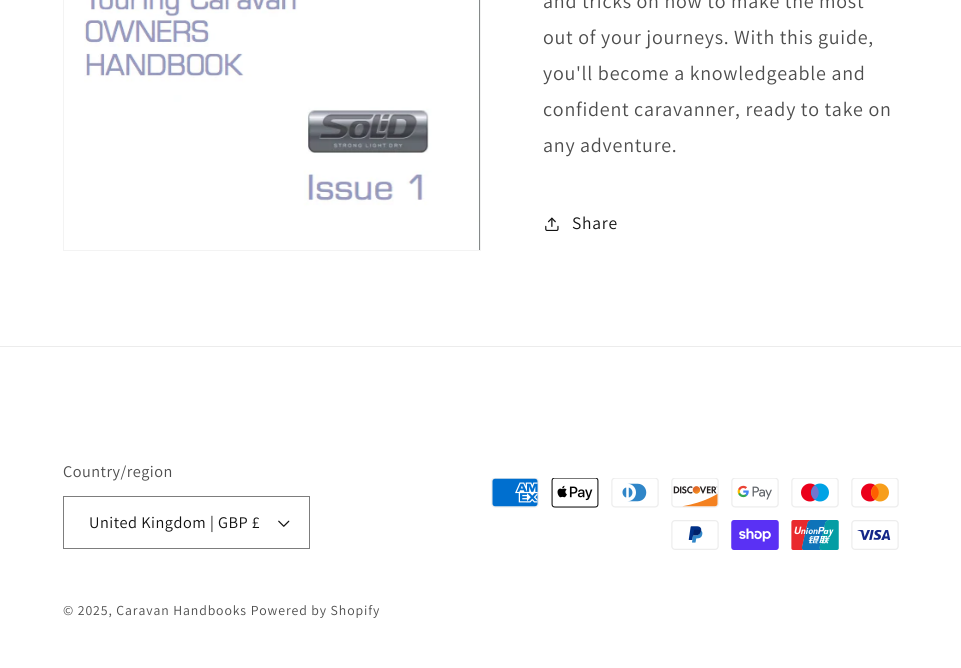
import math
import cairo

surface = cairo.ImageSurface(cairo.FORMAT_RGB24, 961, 668)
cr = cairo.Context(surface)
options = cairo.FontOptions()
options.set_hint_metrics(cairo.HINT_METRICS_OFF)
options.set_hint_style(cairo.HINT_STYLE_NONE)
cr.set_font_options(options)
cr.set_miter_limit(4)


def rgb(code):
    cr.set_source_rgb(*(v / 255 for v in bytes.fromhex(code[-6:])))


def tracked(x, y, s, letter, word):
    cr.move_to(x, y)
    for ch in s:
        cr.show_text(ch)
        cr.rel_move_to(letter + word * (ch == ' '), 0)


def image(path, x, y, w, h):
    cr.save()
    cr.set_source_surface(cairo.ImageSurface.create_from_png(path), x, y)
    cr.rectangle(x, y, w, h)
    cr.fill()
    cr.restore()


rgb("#ffffff")
cr.paint()
cr.rectangle(63.5, -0.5, 417, 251)
rgb("#f3f3f3")
cr.set_line_width(1)
cr.stroke()
image("img/1.png", 84, 0, 396, 250)
image("img/2.png", 545, 217, 14, 14)
rgb("#ececec")
cr.rectangle(0, 346, 961, 1)
cr.fill()
image("img/3.png", 278, 520, 12, 7)
cr.rectangle(63.5, 496.5, 246, 52)
rgb("#7d7d7d")
cr.stroke()
image("img/4.png", 491, 478, 48, 30)
image("img/5.png", 551, 478, 48, 30)
image("img/6.png", 611, 478, 48, 30)
image("img/7.png", 671, 478, 48, 30)
image("img/8.png", 731, 478, 48, 30)
image("img/9.png", 791, 478, 48, 30)
image("img/10.png", 851, 478, 48, 30)
image("img/11.png", 671, 520, 48, 30)
image("img/12.png", 731, 520, 48, 30)
image("img/13.png", 791, 520, 48, 30)
image("img/14.png", 851, 520, 48, 30)
cr.select_font_face("Assistant")
cr.set_font_size(20)
rgb("#4d4d4d")
for x, y, s in [
    (543, 8, "and tricks on how to make the most"),
    (543, 44, "out of your journeys. With this guide,"),
    (543, 80, "you'll become a knowledgeable and"),
    (543, 116, "confident caravanner, ready to take on"),
    (543, 152, "any adventure."),
]:
    tracked(x, y, s, 0.75, 0)
cr.set_font_size(17.5)
rgb("#121212")
tracked(572, 229, "Share", 0.75, 0)
cr.set_font_size(16.25)
rgb("#4d4d4d")
tracked(63, 477, "Country/region", 0.5, 0)
rgb("#121212")
tracked(89, 528, "United Kingdom | GBP £", 0.5, 0)
cr.set_font_size(13.75)
rgb("#4d4d4d")
tracked(63, 615, "© 2025, Caravan Handbooks Powered by Shopify", 0.9, 0)
surface.write_to_png("page.png")
